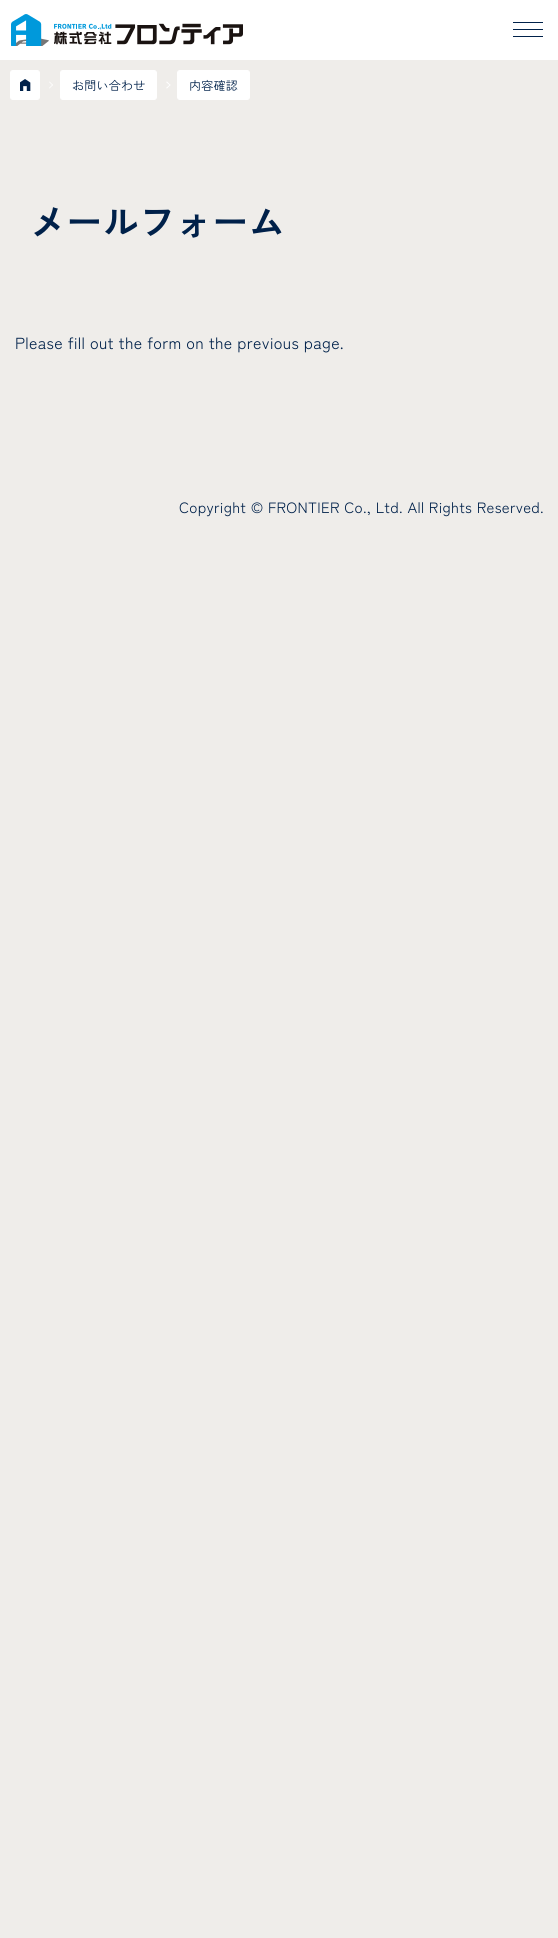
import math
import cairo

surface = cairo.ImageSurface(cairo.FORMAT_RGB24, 558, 1938)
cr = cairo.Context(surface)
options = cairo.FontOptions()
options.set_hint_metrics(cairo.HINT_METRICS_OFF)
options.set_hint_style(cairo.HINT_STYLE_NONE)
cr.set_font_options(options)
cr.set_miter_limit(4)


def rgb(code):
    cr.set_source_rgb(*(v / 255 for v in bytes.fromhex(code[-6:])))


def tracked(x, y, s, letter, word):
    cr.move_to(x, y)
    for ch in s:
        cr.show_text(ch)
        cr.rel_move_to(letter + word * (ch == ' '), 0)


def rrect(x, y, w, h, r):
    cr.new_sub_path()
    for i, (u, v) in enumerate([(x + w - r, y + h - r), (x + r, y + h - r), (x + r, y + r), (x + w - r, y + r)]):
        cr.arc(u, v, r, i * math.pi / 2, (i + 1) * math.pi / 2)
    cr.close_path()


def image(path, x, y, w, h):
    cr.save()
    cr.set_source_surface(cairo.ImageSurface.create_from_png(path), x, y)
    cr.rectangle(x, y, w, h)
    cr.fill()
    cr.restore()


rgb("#efedea")
cr.paint()
rgb("#ffffff")
cr.rectangle(0, 0, 558, 60)
cr.fill()
image("img/1.png", 11, 14, 232, 32)
for x, y, w, h, color in [
    (513, 22, 30, 1, "#00214a"),
    (513, 29, 30, 1, "#00214a"),
    (513, 36, 30, 1, "#00214a"),
]:
    rgb(color)
    cr.rectangle(x, y, w, h)
    cr.fill()
rgb("#ffffff")
rrect(10.5, 70.5, 29, 29, 2.5)
cr.fill_preserve()
cr.set_line_width(1)
cr.stroke()
image("img/2.png", 20, 79, 11, 12)
rrect(60.5, 70.5, 96, 29, 2.5)
cr.fill_preserve()
cr.stroke()
cr.new_path()
cr.move_to(49.5, 81.5)
cr.line_to(53, 85)
cr.line_to(52.5, 85.5)
cr.line_to(49, 82)
cr.close_path()
cr.fill()
cr.new_path()
cr.move_to(52.5, 84.5)
cr.line_to(53, 85)
cr.line_to(49.5, 88.5)
cr.line_to(49, 88)
cr.close_path()
cr.fill()
rrect(177.5, 70.5, 72, 29, 2.5)
cr.fill_preserve()
cr.stroke()
cr.new_path()
cr.move_to(167, 81.5)
cr.line_to(170.5, 85)
cr.line_to(170, 85.5)
cr.line_to(166, 82)
cr.close_path()
cr.fill()
cr.new_path()
cr.move_to(170, 84.5)
cr.line_to(170.5, 85)
cr.line_to(167, 88.5)
cr.line_to(166, 88)
cr.close_path()
cr.fill()
cr.select_font_face("Zen Kaku Gothic Antique")
cr.set_font_size(12)
rgb("#00214a")
tracked(72, 90, "お問い合わせ", 0.25, 0)
tracked(189, 90, "内容確認", 0.25, 0)
cr.select_font_face("Zen Kaku Gothic Antique", cairo.FONT_SLANT_NORMAL, cairo.FONT_WEIGHT_BOLD)
cr.set_font_size(35.75)
tracked(30, 235, "メールフォーム", 0.75, 0)
cr.select_font_face("Zen Kaku Gothic Antique")
cr.set_font_size(16)
tracked(15, 349, "Please fill out the form on the previous page.", 0.3, 0)
cr.set_font_size(14.9)
tracked(179, 513, "Copyright © FRONTIER Co., Ltd. All Rights Reserved.", 0.3, 0)
surface.write_to_png("page.png")
